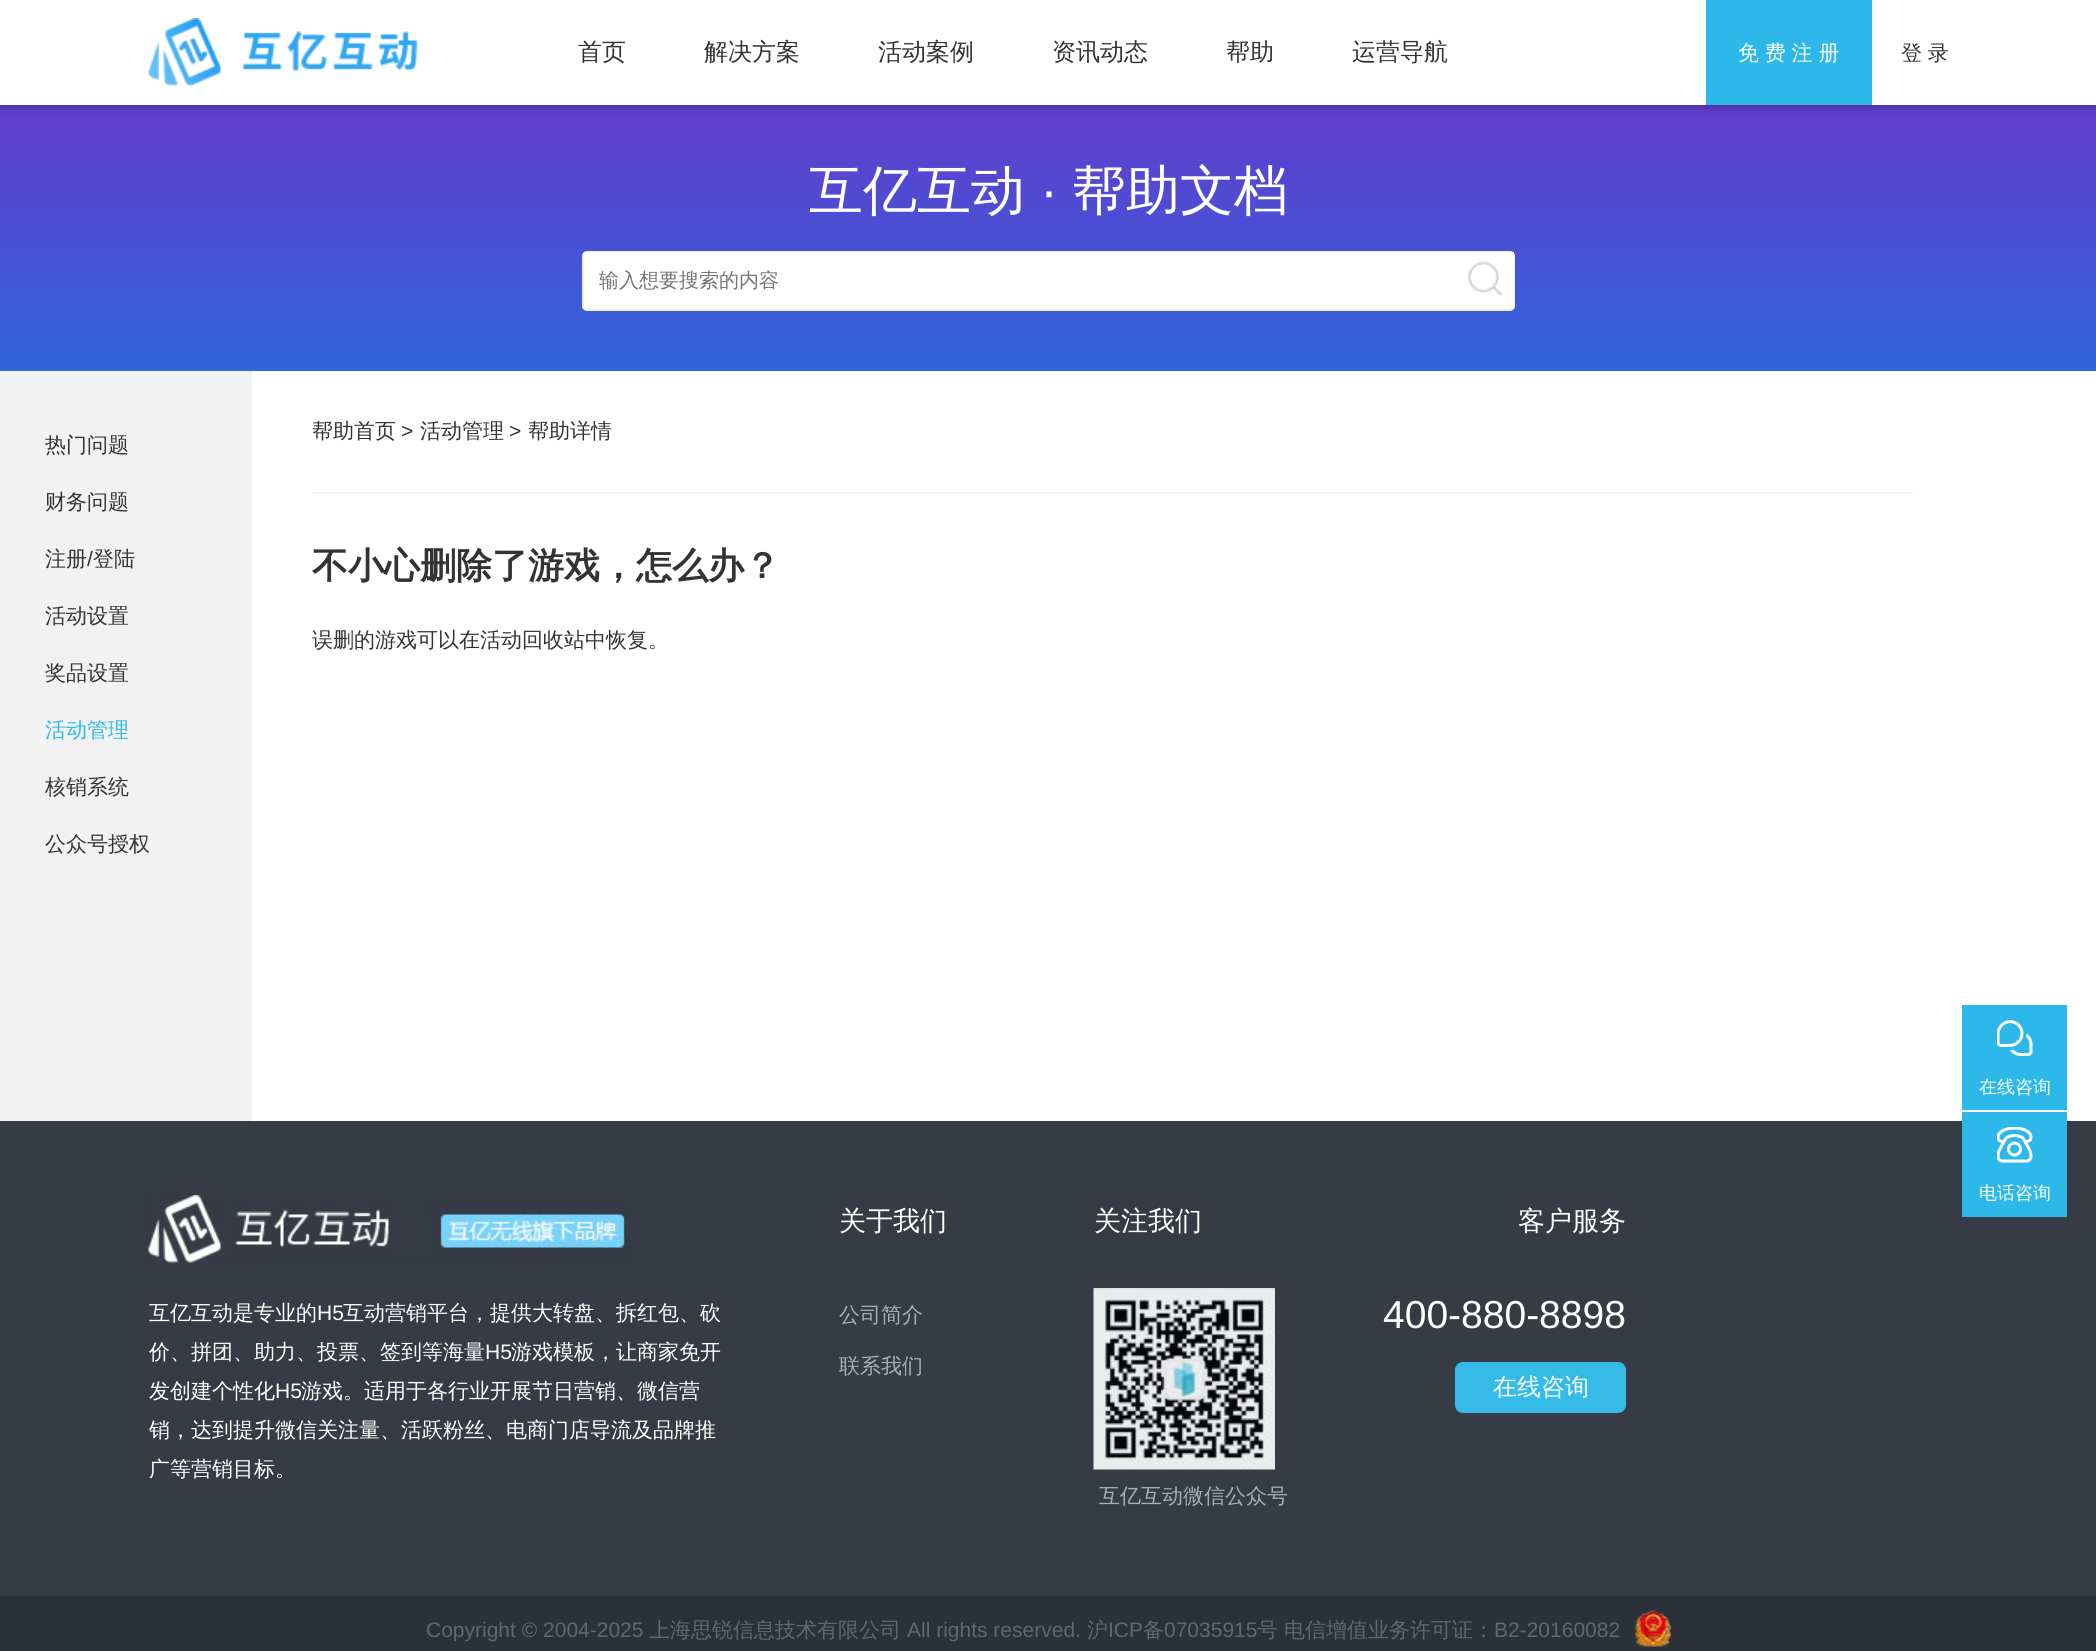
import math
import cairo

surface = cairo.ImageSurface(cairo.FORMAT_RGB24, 2096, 1651)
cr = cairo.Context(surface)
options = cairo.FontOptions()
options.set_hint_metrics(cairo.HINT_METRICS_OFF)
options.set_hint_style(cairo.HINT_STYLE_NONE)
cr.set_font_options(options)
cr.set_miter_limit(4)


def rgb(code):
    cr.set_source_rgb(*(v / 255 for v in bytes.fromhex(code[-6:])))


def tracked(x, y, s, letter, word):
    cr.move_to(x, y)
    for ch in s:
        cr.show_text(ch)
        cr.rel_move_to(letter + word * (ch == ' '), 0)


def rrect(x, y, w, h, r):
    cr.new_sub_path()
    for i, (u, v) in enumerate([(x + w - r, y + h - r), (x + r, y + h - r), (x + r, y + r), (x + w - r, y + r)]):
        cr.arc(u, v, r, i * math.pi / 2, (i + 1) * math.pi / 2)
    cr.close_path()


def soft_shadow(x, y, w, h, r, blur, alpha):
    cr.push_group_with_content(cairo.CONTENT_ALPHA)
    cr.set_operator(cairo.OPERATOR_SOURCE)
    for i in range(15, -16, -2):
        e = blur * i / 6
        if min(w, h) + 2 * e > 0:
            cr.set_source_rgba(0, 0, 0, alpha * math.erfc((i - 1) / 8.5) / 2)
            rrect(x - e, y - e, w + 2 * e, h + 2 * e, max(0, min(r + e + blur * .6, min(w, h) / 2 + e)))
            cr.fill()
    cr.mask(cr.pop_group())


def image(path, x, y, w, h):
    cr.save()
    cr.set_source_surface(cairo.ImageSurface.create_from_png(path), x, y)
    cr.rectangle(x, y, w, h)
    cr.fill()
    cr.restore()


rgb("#ffffff")
cr.paint()
gradient = cairo.LinearGradient(1049, 100, 1049, 371)
gradient.add_color_stop_rgba(0, 0.388, 0.235, 0.8, 1)
gradient.add_color_stop_rgba(1, 0.188, 0.396, 0.863, 1)
cr.set_source(gradient)
cr.rectangle(0, 105, 2096, 266)
cr.fill()
rgb("#000000")
soft_shadow(0, 0, 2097, 105, 0, 7, 0.3)
rgb("#ffffff")
cr.rectangle(0, 0, 2096, 105)
cr.fill()
image("img/1.png", 148, 18, 270, 68)
rgb("#2cb9ea")
cr.rectangle(1706, 0, 166, 105)
cr.fill()
rrect(583, 252, 931, 58, 4)
rgb("#eeeeee")
cr.stroke()
rgb("#ffffff")
cr.rectangle(584, 252, 930, 57)
cr.fill()
image("img/2.png", 1468, 261, 34, 35)
for x, y, w, h, color in [
    (0, 371, 252, 750, "#f2f2f2"),
    (312, 492, 1601, 2, "#f5f5f5"),
    (1962, 1005, 105, 105, "#2cb9ea"),
]:
    rgb(color)
    cr.rectangle(x, y, w, h)
    cr.fill()
image("img/3.png", 1997, 1020, 36, 36)
rgb("#373b46")
cr.rectangle(0, 1121, 2096, 475)
cr.fill()
rgb("#2cb9ea")
cr.rectangle(1962, 1112, 105, 105)
cr.fill()
image("img/4.png", 1997, 1127, 36, 36)
image("img/5.png", 148, 1195, 481, 68)
image("img/6.png", 1093, 1288, 182, 182)
rgb("#36bae8")
rrect(1455, 1362, 171, 51, 8)
cr.fill()
rgb("#2c3039")
cr.rectangle(0, 1596, 2096, 55)
cr.fill()
image("img/7.png", 1635, 1610, 36, 37)
cr.select_font_face("WenQuanYi Zen Hei Medium")
cr.set_font_size(24)
rgb("#333333")
for x, y, s in [
    (578, 60, "首页"),
    (704, 60, "解决方案"),
    (878, 60, "活动案例"),
    (1052, 60, "资讯动态"),
    (1226, 60, "帮助"),
    (1352, 60, "运营导航"),
]:
    cr.move_to(x, y)
    cr.show_text(s)
cr.set_font_size(21)
rgb("#ffffff")
tracked(1738, 60, "免 费 注 册", 0, -0.5)
rgb("#333333")
tracked(1901, 60, "登 录", 0, -0.5)
cr.set_font_size(54)
rgb("#ffffff")
cr.move_to(809, 209)
cr.show_text("互亿互动")
cr.select_font_face("Liberation Sans")
cr.move_to(1040, 209)
cr.show_text("·")
cr.select_font_face("WenQuanYi Zen Hei Medium")
cr.move_to(1072, 209)
cr.show_text("帮助文档")
cr.set_font_size(20)
rgb("#757575")
cr.move_to(599, 287)
cr.show_text("输入想要搜索的内容")
cr.set_font_size(21)
rgb("#333333")
for x, y, s in [
    (45, 452, "热门问题"),
    (45, 509, "财务问题"),
    (45, 566, "注册"),
]:
    cr.move_to(x, y)
    cr.show_text(s)
cr.select_font_face("Liberation Sans")
cr.move_to(87, 566)
cr.show_text("/")
cr.select_font_face("WenQuanYi Zen Hei Medium")
for x, y, s in [
    (93, 566, "登陆"),
    (45, 623, "活动设置"),
    (45, 680, "奖品设置"),
]:
    cr.move_to(x, y)
    cr.show_text(s)
rgb("#2cb9ea")
cr.move_to(45, 737)
cr.show_text("活动管理")
rgb("#333333")
for x, y, s in [
    (45, 794, "核销系统"),
    (45, 851, "公众号授权"),
    (312, 438, "帮助首页"),
]:
    cr.move_to(x, y)
    cr.show_text(s)
cr.select_font_face("Liberation Sans")
cr.move_to(401, 438)
cr.show_text(">")
cr.select_font_face("WenQuanYi Zen Hei Medium")
cr.move_to(420, 438)
cr.show_text("活动管理")
cr.select_font_face("Liberation Sans")
cr.move_to(509, 438)
cr.show_text(">")
cr.select_font_face("WenQuanYi Zen Hei Medium")
cr.move_to(528, 438)
cr.show_text("帮助详情")
cr.select_font_face("WenQuanYi Zen Hei", cairo.FONT_SLANT_NORMAL, cairo.FONT_WEIGHT_BOLD)
cr.set_font_size(36)
cr.move_to(312, 578)
cr.show_text("不小心删除了游戏，怎么办？")
cr.select_font_face("WenQuanYi Zen Hei Medium")
cr.set_font_size(21)
cr.move_to(312, 647)
cr.show_text("误删的游戏可以在活动回收站中恢复。")
cr.set_font_size(18)
rgb("#ffffff")
cr.move_to(1979, 1093)
cr.show_text("在线咨询")
cr.move_to(1979, 1199)
cr.show_text("电话咨询")
cr.set_font_size(21)
cr.move_to(149, 1320)
cr.show_text("互亿互动是专业的")
cr.select_font_face("Liberation Sans")
cr.move_to(317, 1320)
cr.show_text("H5")
cr.select_font_face("WenQuanYi Zen Hei Medium")
cr.move_to(343, 1320)
cr.show_text("互动营销平台，提供大转盘、拆红包、砍")
cr.move_to(149, 1359)
cr.show_text("价、拼团、助力、投票、签到等海量")
cr.select_font_face("Liberation Sans")
cr.move_to(485, 1359)
cr.show_text("H5")
cr.select_font_face("WenQuanYi Zen Hei Medium")
cr.move_to(511, 1359)
cr.show_text("游戏模板，让商家免开")
cr.move_to(149, 1398)
cr.show_text("发创建个性化")
cr.select_font_face("Liberation Sans")
cr.move_to(275, 1398)
cr.show_text("H5")
cr.select_font_face("WenQuanYi Zen Hei Medium")
for x, y, s in [
    (301, 1398, "游戏。适用于各行业开展节日营销、微信营"),
    (149, 1437, "销，达到提升微信关注量、活跃粉丝、电商门店导流及品牌推"),
    (149, 1476, "广等营销目标。"),
]:
    cr.move_to(x, y)
    cr.show_text(s)
cr.set_font_size(27)
cr.move_to(839, 1230)
cr.show_text("关于我们")
cr.set_font_size(21)
rgb("#a9b0b4")
cr.move_to(839, 1322)
cr.show_text("公司简介")
cr.move_to(839, 1373)
cr.show_text("联系我们")
cr.set_font_size(27)
rgb("#ffffff")
cr.move_to(1094, 1230)
cr.show_text("关注我们")
cr.set_font_size(21)
rgb("#a9b0b4")
cr.move_to(1099, 1503)
cr.show_text("互亿互动微信公众号")
cr.set_font_size(27)
rgb("#ffffff")
cr.move_to(1518, 1230)
cr.show_text("客户服务")
cr.select_font_face("Liberation Sans")
cr.set_font_size(39)
cr.move_to(1383, 1328)
cr.show_text("400-880-8898")
cr.select_font_face("WenQuanYi Zen Hei Medium")
cr.set_font_size(24)
cr.move_to(1493, 1395)
cr.show_text("在线咨询")
cr.select_font_face("Liberation Sans")
cr.set_font_size(21)
rgb("#62676e")
cr.move_to(426, 1637)
cr.show_text("Copyright © 2004-2025")
cr.select_font_face("WenQuanYi Zen Hei Medium")
cr.move_to(649, 1637)
cr.show_text("上海思锐信息技术有限公司")
cr.select_font_face("Liberation Sans")
cr.move_to(907, 1637)
cr.show_text("All rights reserved.")
cr.select_font_face("WenQuanYi Zen Hei Medium")
cr.move_to(1087, 1637)
cr.show_text("沪")
cr.select_font_face("Liberation Sans")
cr.move_to(1108, 1637)
cr.show_text("ICP")
cr.select_font_face("WenQuanYi Zen Hei Medium")
cr.move_to(1143, 1637)
cr.show_text("备")
cr.select_font_face("Liberation Sans")
cr.move_to(1164, 1637)
cr.show_text("07035915")
cr.select_font_face("WenQuanYi Zen Hei Medium")
cr.move_to(1257, 1637)
cr.show_text("号")
cr.move_to(1284, 1637)
cr.show_text("电信增值业务许可证：")
cr.select_font_face("Liberation Sans")
cr.move_to(1494, 1637)
cr.show_text("B2-20160082")
surface.write_to_png("page.png")
